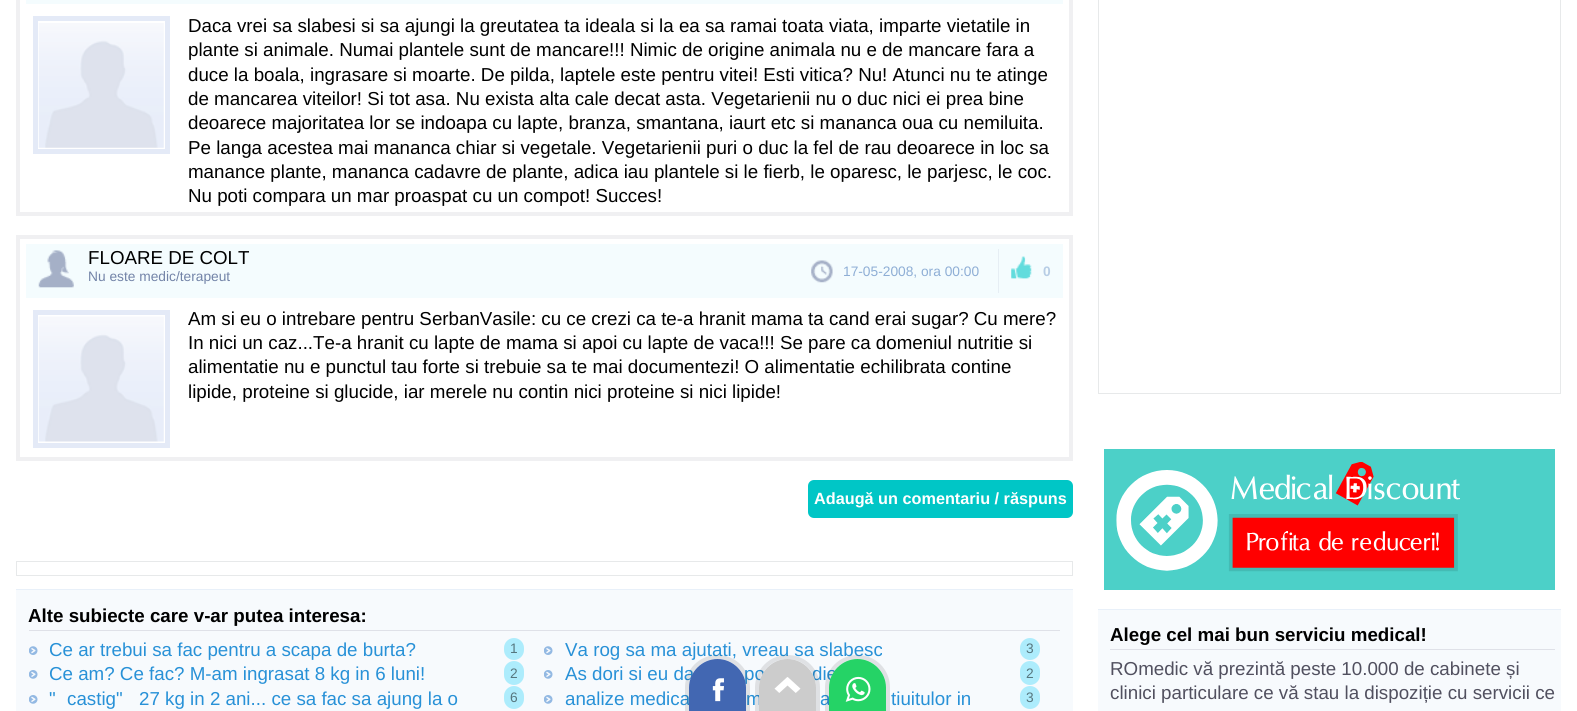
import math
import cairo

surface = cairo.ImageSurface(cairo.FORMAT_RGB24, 1577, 711)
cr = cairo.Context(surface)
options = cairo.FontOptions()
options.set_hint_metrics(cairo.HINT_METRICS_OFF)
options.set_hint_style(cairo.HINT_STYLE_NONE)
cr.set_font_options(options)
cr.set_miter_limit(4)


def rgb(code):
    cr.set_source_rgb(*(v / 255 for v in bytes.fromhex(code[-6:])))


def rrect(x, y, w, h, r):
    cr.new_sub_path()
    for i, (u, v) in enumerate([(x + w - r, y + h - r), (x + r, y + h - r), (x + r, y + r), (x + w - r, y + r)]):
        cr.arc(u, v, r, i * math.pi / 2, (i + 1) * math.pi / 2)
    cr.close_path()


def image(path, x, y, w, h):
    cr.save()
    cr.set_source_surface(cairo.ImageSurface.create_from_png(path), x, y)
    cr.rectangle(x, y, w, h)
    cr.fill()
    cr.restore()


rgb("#ffffff")
cr.paint()
cr.rectangle(18, -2, 1053, 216)
rgb("#f0f0f2")
cr.set_line_width(4)
cr.stroke()
rgb("#f4fcfe")
cr.rectangle(26, 0, 1037, 4)
cr.fill()
cr.rectangle(35.5, 18.5, 132, 133)
rgb("#e4eaf7")
cr.set_line_width(5)
cr.stroke()
image("img/1.png", 38, 23, 126, 125)
cr.rectangle(18, 237, 1053, 222)
rgb("#f0f0f2")
cr.set_line_width(4)
cr.stroke()
rgb("#f4fcfe")
cr.rectangle(26, 244, 1037, 54)
cr.fill()
image("img/2.png", 38, 250, 36, 38)
image("img/3.png", 811, 260, 22, 23)
image("img/4.png", 1011, 256, 21, 23)
rgb("#e6eef4")
cr.rectangle(998, 249, 1, 44)
cr.fill()
cr.rectangle(35.5, 312.5, 132, 133)
rgb("#e4eaf7")
cr.set_line_width(5)
cr.stroke()
image("img/5.png", 38, 316, 126, 126)
rgb("#00c6c6")
rrect(808, 480, 265, 38, 6)
cr.fill()
cr.rectangle(16.5, 561.5, 1056, 14)
rgb("#e7e9ea")
cr.set_line_width(1)
cr.stroke()
for x, y, w, h, color in [
    (16, 590, 1057, 121, "#f7fafd"),
    (16, 589, 1057, 1, "#e8f0f9"),
    (29, 630, 1031, 1, "#dfe1e8"),
]:
    rgb(color)
    cr.rectangle(x, y, w, h)
    cr.fill()
image("img/6.png", 29, 646, 9, 9)
rgb("#adecfc")
rrect(504, 638, 20, 22, 10)
cr.fill()
image("img/6.png", 544, 646, 9, 9)
rrect(1020, 638, 20, 22, 10)
cr.fill()
image("img/7.png", 29, 670, 9, 9)
rrect(504, 661, 20, 24, 10)
cr.fill()
image("img/7.png", 544, 670, 9, 9)
rrect(1020, 661, 20, 24, 10)
cr.fill()
image("img/7.png", 29, 695, 9, 9)
rrect(504, 686, 20, 23, 10)
cr.fill()
image("img/7.png", 544, 695, 9, 9)
rrect(1020, 686, 20, 23, 10)
cr.fill()
cr.rectangle(1098.5, -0.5, 462, 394)
rgb("#e7e9ea")
cr.stroke()
rgb("#4cd0c8")
cr.rectangle(1104, 449, 451, 141)
cr.fill()
image("img/8.png", 1116, 462, 344, 110)
for x, y, w, h, color in [
    (1098, 610, 463, 101, "#f7fafd"),
    (1098, 609, 463, 1, "#e8f0f9"),
    (1110, 649, 445, 1, "#dfe1e8"),
]:
    rgb(color)
    cr.rectangle(x, y, w, h)
    cr.fill()
cr.select_font_face("Liberation Sans")
cr.set_font_size(18.75)
rgb("#000000")
for x, y, s in [
    (188, 32, "Daca vrei sa slabesi si sa ajungi la greutatea ta ideala si la ea sa ramai toata viata, imparte vietatile in"),
    (188, 56, "plante si animale. Numai plantele sunt de mancare!!! Nimic de origine animala nu e de mancare fara a"),
    (188, 81, "duce la boala, ingrasare si moarte. De pilda, laptele este pentru vitei! Esti vitica? Nu! Atunci nu te atinge"),
    (188, 105, "de mancarea viteilor! Si tot asa. Nu exista alta cale decat asta. Vegetarienii nu o duc nici ei prea bine"),
    (188, 129, "deoarece majoritatea lor se indoapa cu lapte, branza, smantana, iaurt etc si mananca oua cu nemiluita."),
    (188, 154, "Pe langa acestea mai mananca chiar si vegetale. Vegetarienii puri o duc la fel de rau deoarece in loc sa"),
    (188, 178, "manance plante, mananca cadavre de plante, adica iau plantele si le fierb, le oparesc, le parjesc, le coc."),
    (188, 202, "Nu poti compara un mar proaspat cu un compot! Succes!"),
    (88, 264, "FLOARE DE COLT"),
]:
    cr.move_to(x, y)
    cr.show_text(s)
cr.set_font_size(13.75)
rgb("#7283a7")
cr.move_to(88, 281)
cr.show_text("Nu este medic/terapeut")
rgb("#8eaed5")
cr.move_to(843, 276)
cr.show_text("17-05-2008, ora 00:00")
cr.select_font_face("Liberation Sans", cairo.FONT_SLANT_NORMAL, cairo.FONT_WEIGHT_BOLD)
rgb("#b7cde5")
cr.move_to(1043, 276)
cr.show_text("0")
cr.select_font_face("Liberation Sans")
cr.set_font_size(18.75)
rgb("#000000")
for x, y, s in [
    (188, 325, "Am si eu o intrebare pentru SerbanVasile: cu ce crezi ca te-a hranit mama ta cand erai sugar? Cu mere?"),
    (188, 349, "In nici un caz...Te-a hranit cu lapte de mama si apoi cu lapte de vaca!!! Se pare ca domeniul nutritie si"),
    (188, 373, "alimentatie nu e punctul tau forte si trebuie sa te mai documentezi! O alimentatie echilibrata contine"),
    (188, 398, "lipide, proteine si glucide, iar merele nu contin nici proteine si nici lipide!"),
]:
    cr.move_to(x, y)
    cr.show_text(s)
cr.select_font_face("Liberation Sans", cairo.FONT_SLANT_NORMAL, cairo.FONT_WEIGHT_BOLD)
cr.set_font_size(16.25)
rgb("#ffffff")
cr.move_to(814, 504)
cr.show_text("Adaugă un comentariu / răspuns")
cr.set_font_size(18.75)
rgb("#000000")
cr.move_to(28, 622)
cr.show_text("Alte subiecte care v-ar putea interesa:")
cr.select_font_face("Liberation Sans")
rgb("#2891d7")
cr.move_to(49, 656)
cr.show_text("Ce ar trebui sa fac pentru a scapa de burta?")
cr.set_font_size(13.75)
rgb("#56767e")
cr.move_to(510, 653)
cr.show_text("1")
cr.set_font_size(18.75)
rgb("#2891d7")
cr.move_to(565, 656)
cr.show_text("Va rog sa ma ajutati, vreau sa slabesc")
cr.set_font_size(13.75)
rgb("#56767e")
cr.move_to(1026, 653)
cr.show_text("3")
cr.set_font_size(18.75)
rgb("#2891d7")
cr.move_to(49, 680)
cr.show_text("Ce am? Ce fac? M-am ingrasat 8 kg in 6 luni!")
cr.set_font_size(13.75)
rgb("#56767e")
cr.move_to(510, 678)
cr.show_text("2")
cr.set_font_size(18.75)
rgb("#2891d7")
for x, y, s in [
    (565, 680, "As dori si eu da"),
    (744, 680, "po"),
    (812, 680, "die"),
]:
    cr.move_to(x, y)
    cr.show_text(s)
cr.set_font_size(13.75)
rgb("#56767e")
cr.move_to(1026, 678)
cr.show_text("2")
cr.set_font_size(18.75)
rgb("#2891d7")
for x, y, s in [
    (49, 705, "\""),
    (67, 705, "castig\""),
    (139, 705, "27 kg in 2 ani... ce sa fac sa ajung la o"),
]:
    cr.move_to(x, y)
    cr.show_text(s)
cr.set_font_size(13.75)
rgb("#56767e")
cr.move_to(510, 702)
cr.show_text("6")
cr.set_font_size(18.75)
rgb("#2891d7")
for x, y, s in [
    (565, 705, "analize medica"),
    (746, 705, "m"),
    (820, 705, "a"),
    (891, 705, "tiuitulor in"),
]:
    cr.move_to(x, y)
    cr.show_text(s)
cr.set_font_size(13.75)
rgb("#56767e")
cr.move_to(1026, 702)
cr.show_text("3")
cr.select_font_face("Liberation Sans", cairo.FONT_SLANT_NORMAL, cairo.FONT_WEIGHT_BOLD)
cr.set_font_size(18.75)
rgb("#000000")
cr.move_to(1110, 641)
cr.show_text("Alege cel mai bun serviciu medical!")
cr.select_font_face("Liberation Sans")
rgb("#51505f")
cr.move_to(1110, 675)
cr.show_text("ROmedic vă prezintă peste 10.000 de cabinete și")
cr.move_to(1110, 699)
cr.show_text("clinici particulare ce vă stau la dispoziție cu servicii ce")
cr.new_path()
cr.move_to(717.5, 657)
cr.curve_to(734.5, 657, 748, 670.5, 748, 687.5)
cr.line_to(748, 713)
cr.line_to(687, 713)
cr.line_to(687, 687.5)
cr.curve_to(687, 670.5, 700.5, 657, 717.5, 657)
cr.close_path()
cr.set_source_rgba(0, 0, 0, 0.1)
cr.set_line_width(4)
cr.stroke()
rgb("#4267b2")
cr.new_path()
cr.move_to(717.5, 659)
cr.curve_to(733, 659, 746, 672, 746, 687.5)
cr.line_to(746, 711)
cr.line_to(689, 711)
cr.line_to(689, 687.5)
cr.curve_to(689, 672, 702, 659, 717.5, 659)
cr.close_path()
cr.fill()
image("img/9.png", 712, 678, 12, 24)
cr.new_path()
cr.move_to(787.5, 657)
cr.curve_to(804.5, 657, 818, 670.5, 818, 687.5)
cr.line_to(818, 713)
cr.line_to(757, 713)
cr.line_to(757, 687.5)
cr.curve_to(757, 670.5, 770.5, 657, 787.5, 657)
cr.close_path()
cr.set_source_rgba(0, 0, 0, 0.1)
cr.stroke()
rgb("#cccccc")
cr.new_path()
cr.move_to(787.5, 659)
cr.curve_to(803, 659, 816, 672, 816, 687.5)
cr.line_to(816, 711)
cr.line_to(759, 711)
cr.line_to(759, 687.5)
cr.curve_to(759, 672, 772, 659, 787.5, 659)
cr.close_path()
cr.fill()
image("img/10.png", 774, 677, 27, 16)
cr.new_path()
cr.move_to(857.5, 657)
cr.curve_to(874.5, 657, 888, 670.5, 888, 687.5)
cr.line_to(888, 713)
cr.line_to(827, 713)
cr.line_to(827, 687.5)
cr.curve_to(827, 670.5, 840.5, 657, 857.5, 657)
cr.close_path()
cr.set_source_rgba(0, 0, 0, 0.1)
cr.stroke()
rgb("#25d366")
cr.new_path()
cr.move_to(857.5, 659)
cr.curve_to(873, 659, 886, 672, 886, 687.5)
cr.line_to(886, 711)
cr.line_to(829, 711)
cr.line_to(829, 687.5)
cr.curve_to(829, 672, 842, 659, 857.5, 659)
cr.close_path()
cr.fill()
image("img/11.png", 845, 676, 26, 26)
surface.write_to_png("page.png")
